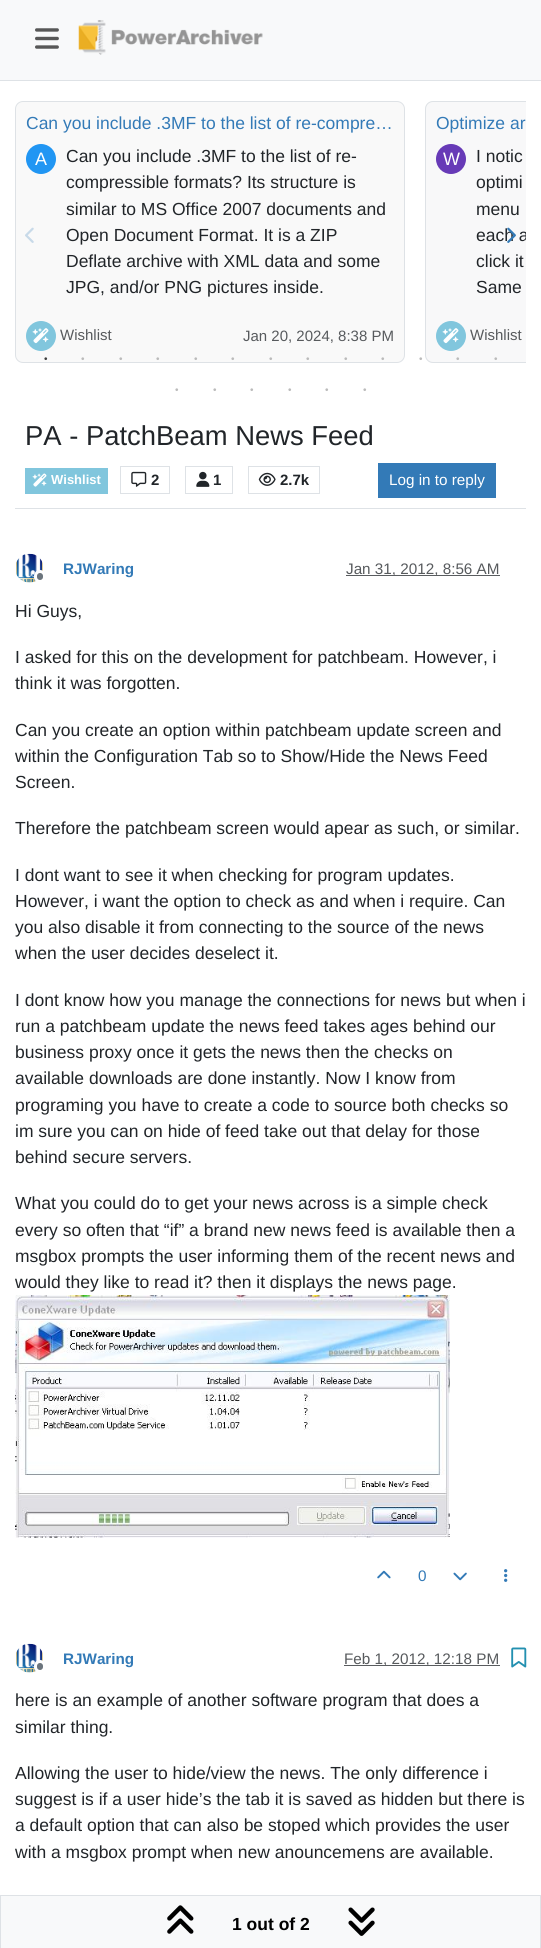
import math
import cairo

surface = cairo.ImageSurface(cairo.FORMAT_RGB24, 541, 1948)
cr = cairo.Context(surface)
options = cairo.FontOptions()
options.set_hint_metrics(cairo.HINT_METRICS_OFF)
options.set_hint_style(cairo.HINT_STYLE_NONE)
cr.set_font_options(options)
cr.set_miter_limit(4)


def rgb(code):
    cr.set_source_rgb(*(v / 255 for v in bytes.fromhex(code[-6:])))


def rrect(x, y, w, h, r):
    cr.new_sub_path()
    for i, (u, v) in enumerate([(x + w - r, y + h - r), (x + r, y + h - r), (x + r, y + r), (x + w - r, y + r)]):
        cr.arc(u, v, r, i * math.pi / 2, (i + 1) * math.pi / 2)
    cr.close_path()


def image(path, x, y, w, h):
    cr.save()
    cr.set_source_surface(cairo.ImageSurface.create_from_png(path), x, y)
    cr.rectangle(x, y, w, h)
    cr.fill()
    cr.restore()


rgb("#ffffff")
cr.paint()
rgb("#f8f9fa")
cr.rectangle(0, 0, 541, 80)
cr.fill()
rgb("#dee2e6")
cr.rectangle(0, 80, 541, 1)
cr.fill()
image("img/1.png", 35, 28, 24, 21)
image("img/2.png", 78, 20, 185, 35)
rgb("#f9f9f9")
rrect(15.5, 101.5, 389, 261, 7.5)
cr.fill_preserve()
rgb("#dee2e6")
cr.set_line_width(1)
cr.stroke()
rgb("#2196f3")
cr.arc(41, 159, 15, 0, 2 * math.pi)
cr.fill()
rgb("#81c6dd")
cr.arc(41, 336, 15, 0, 2 * math.pi)
cr.fill()
image("img/3.png", 32, 328, 17, 16)
rgb("#f8f8f9")
cr.new_path()
cr.move_to(433, 101)
cr.line_to(526, 101)
cr.line_to(526, 363)
cr.line_to(433, 363)
cr.curve_to(428.5, 363, 425, 359.5, 425, 355)
cr.line_to(425, 109)
cr.curve_to(425, 104.5, 428.5, 101, 433, 101)
cr.close_path()
cr.fill()
cr.save()
cr.rectangle(15, 101, 511, 272)
cr.clip()
rrect(425.5, 101.5, 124, 261, 7.5)
rgb("#dee2e6")
cr.stroke()
cr.restore()
rgb("#673ab7")
cr.arc(451, 159, 15, 0, 2 * math.pi)
cr.fill()
rgb("#81c6dd")
cr.arc(451, 336, 15, 0, 2 * math.pi)
cr.fill()
image("img/3.png", 442, 328, 17, 16)
image("img/4.png", 25, 227, 9, 16)
rgb("#dee2e6")
cr.rectangle(15, 508, 511, 1)
cr.fill()
rgb("#81c6dd")
cr.rectangle(25, 468, 83, 26)
cr.fill()
image("img/6.png", 32, 473, 15, 14)
cr.rectangle(120.5, 466.5, 49, 27)
rgb("#dee2e6")
cr.stroke()
image("img/7.png", 131, 471, 16, 16)
cr.rectangle(185.5, 466.5, 47, 27)
cr.stroke()
image("img/8.png", 196, 471, 14, 16)
cr.rectangle(248.5, 466.5, 71, 27)
cr.stroke()
image("img/9.png", 258, 472, 18, 14)
rgb("#337ab7")
cr.rectangle(378, 463, 118, 35)
cr.fill()
image("img/10.png", 16, 553, 27, 30)
rgb("#6c757d")
rrect(35.5, 571.5, 9, 10, 4.5)
cr.fill_preserve()
rgb("#ffffff")
cr.set_line_width(3)
cr.stroke()
rgb("#595c5f")
cr.rectangle(346, 575, 154, 1)
cr.fill()
image("img/11.png", 15, 1295, 435, 243)
image("img/12.png", 377, 1570, 14, 9)
image("img/13.png", 453, 1572, 14, 9)
image("img/14.png", 504, 1569, 4, 13)
image("img/10.png", 16, 1643, 27, 30)
rgb("#6c757d")
rrect(35.5, 1661.5, 9, 10, 4.5)
cr.fill_preserve()
rgb("#ffffff")
cr.stroke()
rgb("#595c5f")
cr.rectangle(344, 1665, 156, 1)
cr.fill()
image("img/15.png", 511, 1647, 16, 21)
rgb("#f8f9fa")
cr.rectangle(0.5, 1895.5, 540, 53)
cr.fill_preserve()
rgb("#dee2e6")
cr.set_line_width(1)
cr.stroke()
image("img/16.png", 167, 1905, 27, 29)
image("img/17.png", 348, 1907, 27, 29)
cr.select_font_face("Liberation Sans")
cr.set_font_size(17.5)
rgb("#337ab7")
cr.move_to(26, 129)
cr.show_text("Can you include .3MF to the list of re-compre…")
cr.set_font_size(18)
rgb("#ffffff")
cr.move_to(35, 165)
cr.show_text("A")
cr.set_font_size(17.5)
rgb("#212529")
for x, y, s in [
    (66, 162, "Can you include .3MF to the list of re-"),
    (66, 188, "compressible formats? Its structure is"),
    (66, 215, "similar to MS Office 2007 documents and"),
    (66, 241, "Open Document Format. It is a ZIP"),
    (66, 267, "Deflate archive with XML data and some"),
    (66, 293, "JPG, and/or PNG pictures inside."),
]:
    cr.move_to(x, y)
    cr.show_text(s)
cr.set_font_size(15)
rgb("#575a5d")
cr.move_to(60, 340)
cr.show_text("Wishlist")
cr.move_to(243, 341)
cr.show_text("Jan 20, 2024, 8:38 PM")
cr.set_font_size(17.5)
rgb("#337ab7")
cr.move_to(436, 129)
cr.show_text("Optimize ar")
cr.set_font_size(18)
rgb("#ffffff")
cr.move_to(443, 165)
cr.show_text("W")
cr.set_font_size(17.5)
rgb("#212529")
for x, y, s in [
    (476, 162, "I notic"),
    (476, 188, "optimi"),
    (476, 215, "menu"),
]:
    cr.move_to(x, y)
    cr.show_text(s)
cr.save()
cr.rectangle(436, 113, 90, 188)
cr.clip()
cr.move_to(476, 241)
cr.show_text("each a")
cr.restore()
cr.move_to(476, 267)
cr.show_text("click it")
cr.move_to(476, 293)
cr.show_text("Same")
cr.set_font_size(15)
rgb("#575a5d")
cr.move_to(470, 340)
cr.show_text("Wishlist")
image("img/5.png", 507, 227, 9, 16)
cr.set_font_size(10)
rgb("#3e3e3e")
cr.move_to(44, 362)
cr.show_text("•")
rgb("#bbbbbb")
for x, y, s in [
    (81, 362, "•"),
    (119, 362, "•"),
    (156, 362, "•"),
    (194, 362, "•"),
    (231, 362, "•"),
    (269, 362, "•"),
    (306, 362, "•"),
    (344, 362, "•"),
    (381, 362, "•"),
    (419, 362, "•"),
    (456, 362, "•"),
    (494, 362, "•"),
    (175, 393, "•"),
    (213, 393, "•"),
    (250, 393, "•"),
    (288, 393, "•"),
    (325, 393, "•"),
    (363, 393, "•"),
]:
    cr.move_to(x, y)
    cr.show_text(s)
cr.set_font_size(27.4)
rgb("#212529")
cr.move_to(25, 445)
cr.show_text("PA - PatchBeam News Feed")
cr.select_font_face("Liberation Sans", cairo.FONT_SLANT_NORMAL, cairo.FONT_WEIGHT_BOLD)
cr.set_font_size(13)
rgb("#ffffff")
cr.move_to(51, 484)
cr.show_text("Wishlist")
cr.set_font_size(15)
rgb("#212529")
for x, y, s in [
    (151, 485, "2"),
    (213, 485, "1"),
    (280, 485, "2.7k"),
]:
    cr.move_to(x, y)
    cr.show_text(s)
cr.select_font_face("Liberation Sans")
cr.set_font_size(15.25)
rgb("#ffffff")
cr.move_to(389, 485)
cr.show_text("Log in to reply")
cr.select_font_face("Liberation Sans", cairo.FONT_SLANT_NORMAL, cairo.FONT_WEIGHT_BOLD)
rgb("#337ab7")
cr.move_to(63, 574)
cr.show_text("RJWaring")
cr.select_font_face("Liberation Sans")
rgb("#575a5d")
cr.move_to(346, 574)
cr.show_text("Jan 31, 2012, 8:56 AM")
cr.set_font_size(17.5)
rgb("#212529")
for x, y, s in [
    (15, 617, "Hi Guys,"),
    (15, 663, "I asked for this on the development for patchbeam. However, i"),
    (15, 689, "think it was forgotten."),
    (15, 736, "Can you create an option within patchbeam update screen and"),
    (15, 762, "within the Configuration Tab so to Show/Hide the News Feed"),
    (15, 788, "Screen."),
    (15, 834, "Therefore the patchbeam screen would apear as such, or similar."),
    (15, 881, "I dont want to see it when checking for program updates."),
    (15, 907, "However, i want the option to check as and when i require. Can"),
    (15, 933, "you also disable it from connecting to the source of the news"),
    (15, 959, "when the user decides deselect it."),
    (15, 1006, "I dont know how you manage the connections for news but when i"),
    (15, 1032, "run a patchbeam update the news feed takes ages behind our"),
    (15, 1058, "business proxy once it gets the news then the checks on"),
    (15, 1084, "available downloads are done instantly. Now I know from"),
    (15, 1111, "programing you have to create a code to source both checks so"),
    (15, 1137, "im sure you can on hide of feed take out that delay for those"),
    (15, 1163, "behind secure servers."),
    (15, 1209, "What you could do to get your news across is a simple check"),
    (15, 1236, "every so often that “if” a brand new news feed is available then a"),
    (15, 1262, "msgbox prompts the user informing them of the recent news and"),
    (15, 1288, "would they like to read it? then it displays the news page."),
]:
    cr.move_to(x, y)
    cr.show_text(s)
cr.set_font_size(15.25)
rgb("#337ab7")
cr.move_to(418, 1581)
cr.show_text("0")
cr.select_font_face("Liberation Sans", cairo.FONT_SLANT_NORMAL, cairo.FONT_WEIGHT_BOLD)
cr.move_to(63, 1664)
cr.show_text("RJWaring")
cr.select_font_face("Liberation Sans")
rgb("#575a5d")
cr.move_to(344, 1664)
cr.show_text("Feb 1, 2012, 12:18 PM")
cr.set_font_size(17.5)
rgb("#212529")
for x, y, s in [
    (15, 1706, "here is an example of another software program that does a"),
    (15, 1733, "similar thing."),
    (15, 1779, "Allowing the user to hide/view the news. The only difference i"),
    (15, 1805, "suggest is if a user hide’s the tab it is saved as hidden but there is"),
    (15, 1831, "a default option that can also be stoped which provides the user"),
    (15, 1858, "with a msgbox prompt when new anouncemens are available."),
]:
    cr.move_to(x, y)
    cr.show_text(s)
cr.select_font_face("Liberation Sans", cairo.FONT_SLANT_NORMAL, cairo.FONT_WEIGHT_BOLD)
rgb("#000000")
cr.move_to(232, 1930)
cr.show_text("1 out of 2")
surface.write_to_png("page.png")
